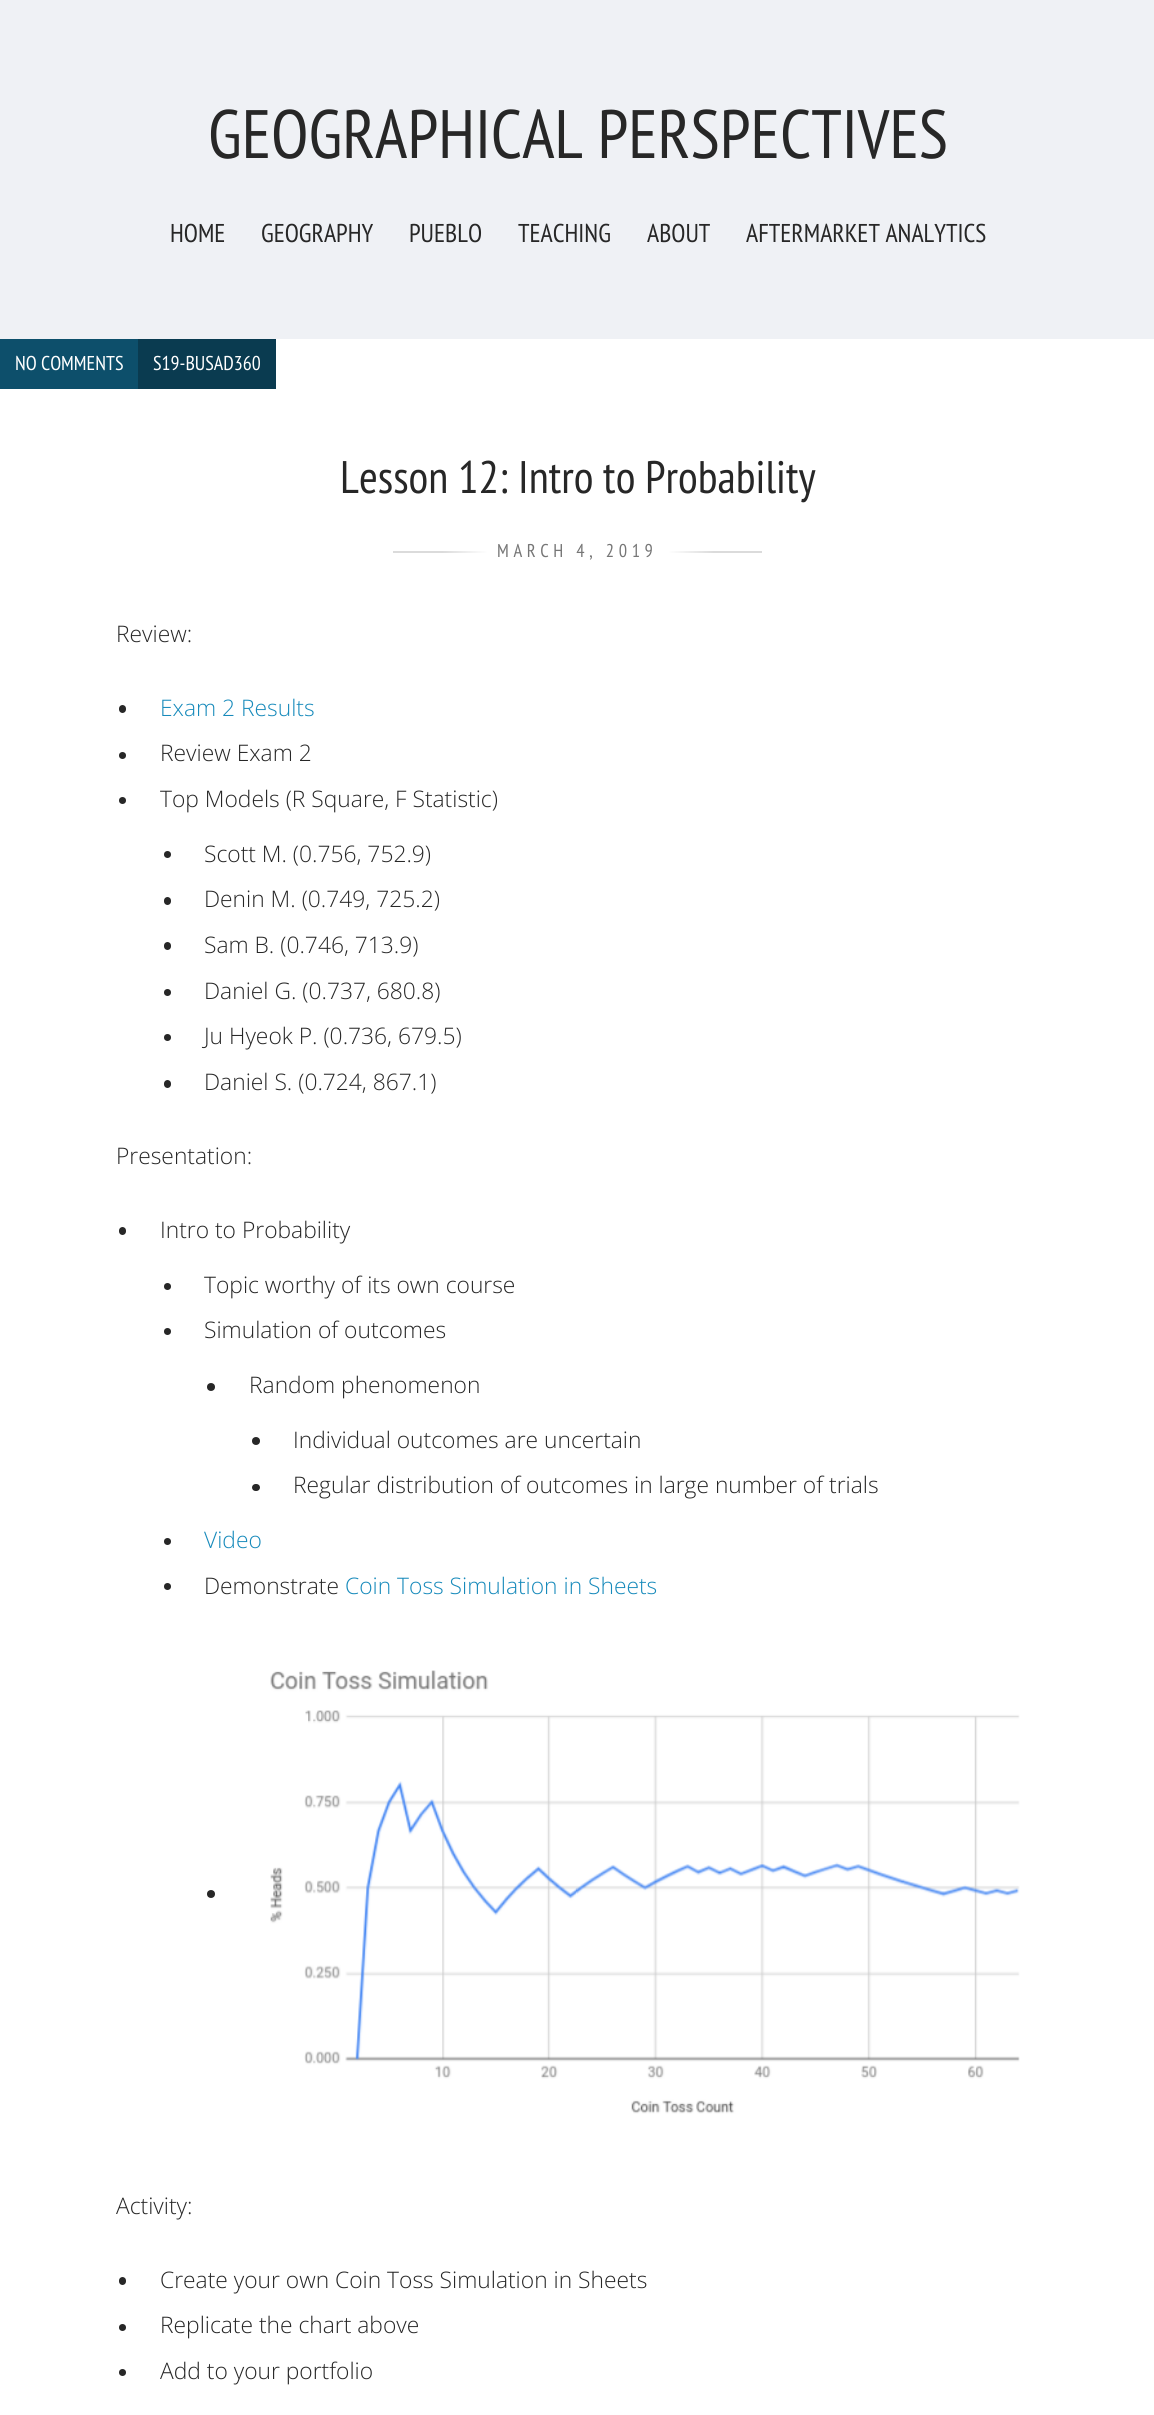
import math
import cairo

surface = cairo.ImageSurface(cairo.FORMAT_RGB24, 1154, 2415)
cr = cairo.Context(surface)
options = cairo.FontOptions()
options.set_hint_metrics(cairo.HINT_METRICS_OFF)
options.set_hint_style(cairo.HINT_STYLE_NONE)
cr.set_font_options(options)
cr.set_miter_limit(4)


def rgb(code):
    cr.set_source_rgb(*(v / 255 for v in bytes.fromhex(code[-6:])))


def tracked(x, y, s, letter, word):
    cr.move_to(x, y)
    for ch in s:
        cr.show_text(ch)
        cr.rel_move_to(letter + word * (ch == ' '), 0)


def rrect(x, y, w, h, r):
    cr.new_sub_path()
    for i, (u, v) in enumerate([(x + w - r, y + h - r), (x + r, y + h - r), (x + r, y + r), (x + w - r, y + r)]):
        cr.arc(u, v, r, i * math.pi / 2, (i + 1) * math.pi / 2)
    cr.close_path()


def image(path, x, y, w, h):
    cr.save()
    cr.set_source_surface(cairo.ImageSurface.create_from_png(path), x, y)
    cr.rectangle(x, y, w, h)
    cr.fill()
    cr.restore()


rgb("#eff1f5")
cr.paint()
for x, y, w, h, color in [
    (0, 339, 1154, 2076, "#ffffff"),
    (0, 339, 138, 50, "#0d4f6b"),
    (138, 339, 138, 50, "#0a3b50"),
]:
    rgb(color)
    cr.rectangle(x, y, w, h)
    cr.fill()
gradient = cairo.LinearGradient(488, 551, -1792, 551)
gradient.add_color_stop_rgba(0, 1, 1, 1, 1)
gradient.add_color_stop_rgba(0.02, 0.859, 0.859, 0.859, 1)
cr.set_source(gradient)
cr.rectangle(393, 551, 95, 2)
cr.fill()
gradient = cairo.LinearGradient(668, 551, 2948, 551)
gradient.add_color_stop_rgba(0, 1, 1, 1, 1)
gradient.add_color_stop_rgba(0.02, 0.859, 0.859, 0.859, 1)
cr.set_source(gradient)
cr.rectangle(668, 551, 94, 2)
cr.fill()
rgb("#272727")
rrect(119, 705, 7, 8, 3.5)
cr.fill()
cr.arc(122.5, 755.5, 3.5, 0, 2 * math.pi)
cr.fill()
cr.arc(122.5, 800.5, 3.5, 0, 2 * math.pi)
cr.fill()
cr.arc(167.5, 854.5, 3.5, 0, 2 * math.pi)
cr.fill()
rrect(164, 897, 7, 8, 3.5)
cr.fill()
rrect(164, 942, 7, 8, 3.5)
cr.fill()
cr.arc(167.5, 992.5, 3.5, 0, 2 * math.pi)
cr.fill()
cr.arc(167.5, 1037.5, 3.5, 0, 2 * math.pi)
cr.fill()
rrect(164, 1080, 7, 8, 3.5)
cr.fill()
rrect(119, 1227, 7, 8, 3.5)
cr.fill()
cr.arc(167.5, 1286.5, 3.5, 0, 2 * math.pi)
cr.fill()
cr.arc(167.5, 1331.5, 3.5, 0, 2 * math.pi)
cr.fill()
cr.arc(211, 1387, 4, 0, 2 * math.pi)
cr.fill()
cr.arc(256, 1441, 4, 0, 2 * math.pi)
cr.fill()
rrect(252, 1484, 8, 7, 3.5)
cr.fill()
cr.arc(167.5, 1541.5, 3.5, 0, 2 * math.pi)
cr.fill()
cr.arc(167.5, 1586.5, 3.5, 0, 2 * math.pi)
cr.fill()
cr.arc(211, 1894, 4, 0, 2 * math.pi)
cr.fill()
image("img/1.png", 270, 1670, 750, 444)
rrect(119, 2277, 7, 8, 3.5)
cr.fill()
cr.arc(122.5, 2327.5, 3.5, 0, 2 * math.pi)
cr.fill()
cr.arc(122.5, 2372.5, 3.5, 0, 2 * math.pi)
cr.fill()
cr.select_font_face("PT Sans Narrow")
cr.set_font_size(68.4)
cr.move_to(208, 158)
cr.show_text("GEOGRAPHICAL PERSPECTIVES")
cr.set_font_size(25.75)
for x, y, s in [
    (170, 242, "HOME"),
    (261, 242, "GEOGRAPHY"),
    (409, 242, "PUEBLO"),
    (518, 242, "TEACHING"),
    (647, 242, "ABOUT"),
    (746, 242, "AFTERMARKET ANALYTICS"),
]:
    cr.move_to(x, y)
    cr.show_text(s)
cr.set_font_size(20)
rgb("#ffffff")
cr.move_to(15, 370)
cr.show_text("NO COMMENTS")
cr.move_to(153, 370)
cr.show_text("S19-BUSAD360")
cr.set_font_size(45.6)
rgb("#272727")
cr.move_to(340, 493)
cr.show_text("Lesson 12: Intro to Probability")
cr.set_font_size(18.5)
rgb("#767676")
tracked(497, 557, "MARCH 4, 2019", 4.6, 0)
cr.select_font_face("Open Sans Light")
cr.set_font_size(22.8)
rgb("#272727")
cr.move_to(116, 642)
cr.show_text("Review:")
rgb("#178abb")
cr.move_to(160, 716)
cr.show_text("Exam 2 Results")
rgb("#272727")
for x, y, s in [
    (160, 761, "Review Exam 2"),
    (160, 807, "Top Models (R Square, F Statistic)"),
    (204, 862, "Scott M. (0.756, 752.9)"),
    (204, 907, "Denin M. (0.749, 725.2)"),
    (204, 953, "Sam B. (0.746, 713.9)"),
    (204, 999, "Daniel G. (0.737, 680.8)"),
    (204, 1044, "Ju Hyeok P. (0.736, 679.5)"),
    (204, 1090, "Daniel S. (0.724, 867.1)"),
    (116, 1164, "Presentation:"),
    (160, 1238, "Intro to Probability"),
    (204, 1293, "Topic worthy of its own course"),
    (204, 1338, "Simulation of outcomes"),
    (249, 1393, "Random phenomenon"),
    (293, 1448, "Individual outcomes are uncertain"),
    (293, 1493, "Regular distribution of outcomes in large number of trials"),
]:
    cr.move_to(x, y)
    cr.show_text(s)
rgb("#178abb")
cr.move_to(204, 1548)
cr.show_text("Video")
rgb("#272727")
cr.move_to(204, 1594)
cr.show_text("Demonstrate")
rgb("#178abb")
cr.move_to(345, 1594)
cr.show_text("Coin Toss Simulation in Sheets")
rgb("#272727")
for x, y, s in [
    (116, 2214, "Activity:"),
    (160, 2288, "Create your own Coin Toss Simulation in Sheets"),
    (160, 2333, "Replicate the chart above"),
    (160, 2379, "Add to your portfolio"),
]:
    cr.move_to(x, y)
    cr.show_text(s)
surface.write_to_png("page.png")
